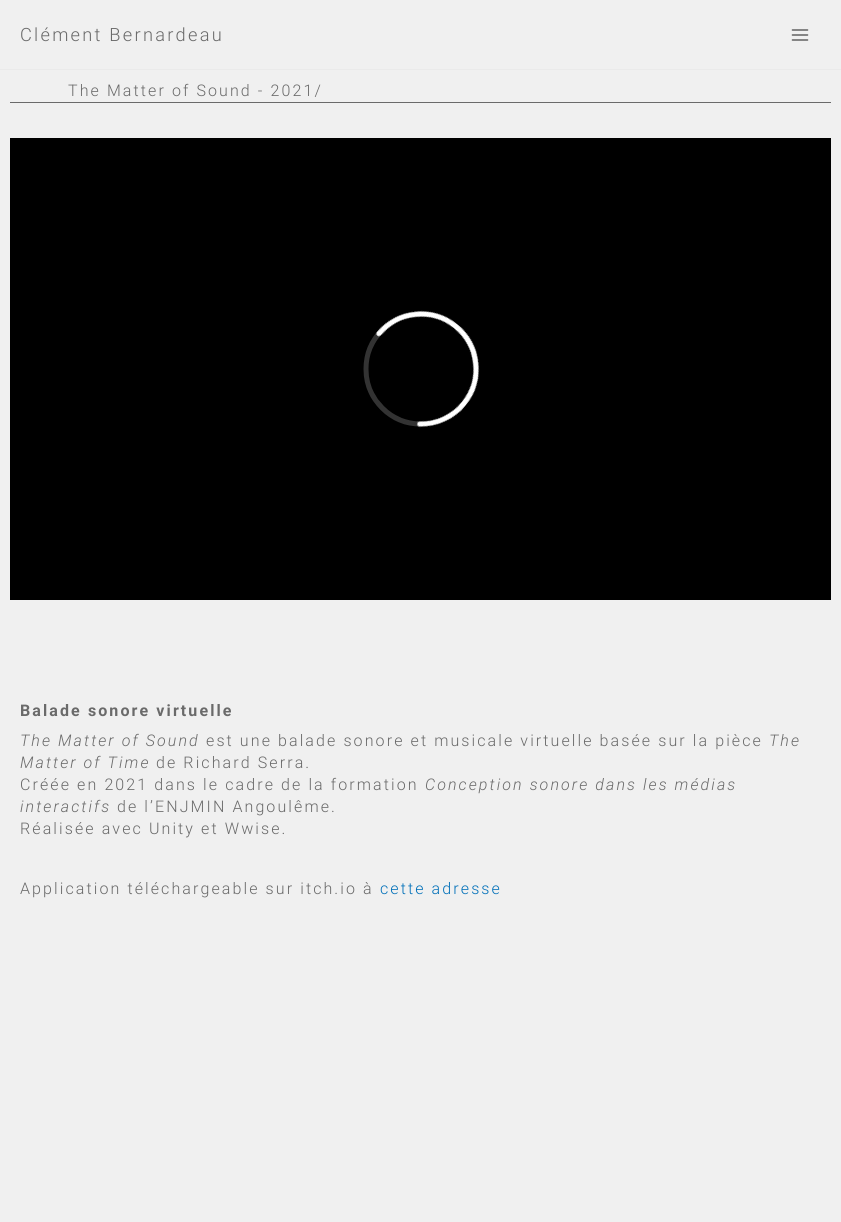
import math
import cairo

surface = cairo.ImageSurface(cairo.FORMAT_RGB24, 841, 1222)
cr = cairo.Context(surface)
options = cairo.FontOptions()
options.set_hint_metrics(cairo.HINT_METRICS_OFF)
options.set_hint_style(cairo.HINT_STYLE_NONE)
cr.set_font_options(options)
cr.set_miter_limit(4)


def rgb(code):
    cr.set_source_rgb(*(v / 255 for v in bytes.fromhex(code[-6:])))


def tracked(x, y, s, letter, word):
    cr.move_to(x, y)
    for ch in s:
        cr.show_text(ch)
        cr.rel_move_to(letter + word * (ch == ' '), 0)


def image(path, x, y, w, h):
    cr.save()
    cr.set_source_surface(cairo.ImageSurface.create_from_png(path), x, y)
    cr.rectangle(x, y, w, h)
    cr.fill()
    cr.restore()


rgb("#f0f0f0")
cr.paint()
rgb("#eaeaea")
cr.rectangle(0, 69, 841, 1)
cr.fill()
image("img/1.png", 791, 29, 18, 12)
rgb("#6a6a6a")
cr.rectangle(10, 102, 821, 1)
cr.fill()
rgb("#000000")
cr.rectangle(10, 138, 821, 462)
cr.fill()
image("img/2.png", 363, 310, 117, 118)
cr.select_font_face("Roboto Light")
cr.set_font_size(18.25)
rgb("#6a6a6a")
tracked(20, 41, "Clément Bernardeau", 2.25, 0)
cr.set_font_size(16)
tracked(68, 96, "The Matter of Sound - 2021/", 2.1, 0)
cr.select_font_face("Roboto", cairo.FONT_SLANT_NORMAL, cairo.FONT_WEIGHT_BOLD)
tracked(20, 716, "Balade sonore virtuelle", 2.1, 0)
cr.select_font_face("Roboto Light", cairo.FONT_SLANT_ITALIC)
tracked(20, 746, "The Matter of Sound", 2.1, 0)
cr.select_font_face("Roboto Light")
tracked(206, 746, "est une balade sonore et musicale virtuelle basée sur la pièce", 2.1, 0)
cr.select_font_face("Roboto Light", cairo.FONT_SLANT_ITALIC)
tracked(769, 746, "The", 2.1, 0)
tracked(20, 768, "Matter of Time", 2.1, 0)
cr.select_font_face("Roboto Light")
tracked(156, 768, "de Richard Serra.", 2.1, 0)
tracked(20, 790, "Créée en 2021 dans le cadre de la formation", 2.1, 0)
cr.select_font_face("Roboto Light", cairo.FONT_SLANT_ITALIC)
tracked(425, 790, "Conception sonore dans les médias", 2.1, 0)
tracked(20, 812, "interactifs", 2.1, 0)
cr.select_font_face("Roboto Light")
for x, y, s in [
    (117, 812, "de l’ENJMIN Angoulême."),
    (20, 834, "Réalisée avec Unity et Wwise."),
    (20, 894, "Application téléchargeable sur itch.io à"),
]:
    tracked(x, y, s, 2.1, 0)
rgb("#0170b9")
tracked(380, 894, "cette adresse", 2.1, 0)
surface.write_to_png("page.png")
